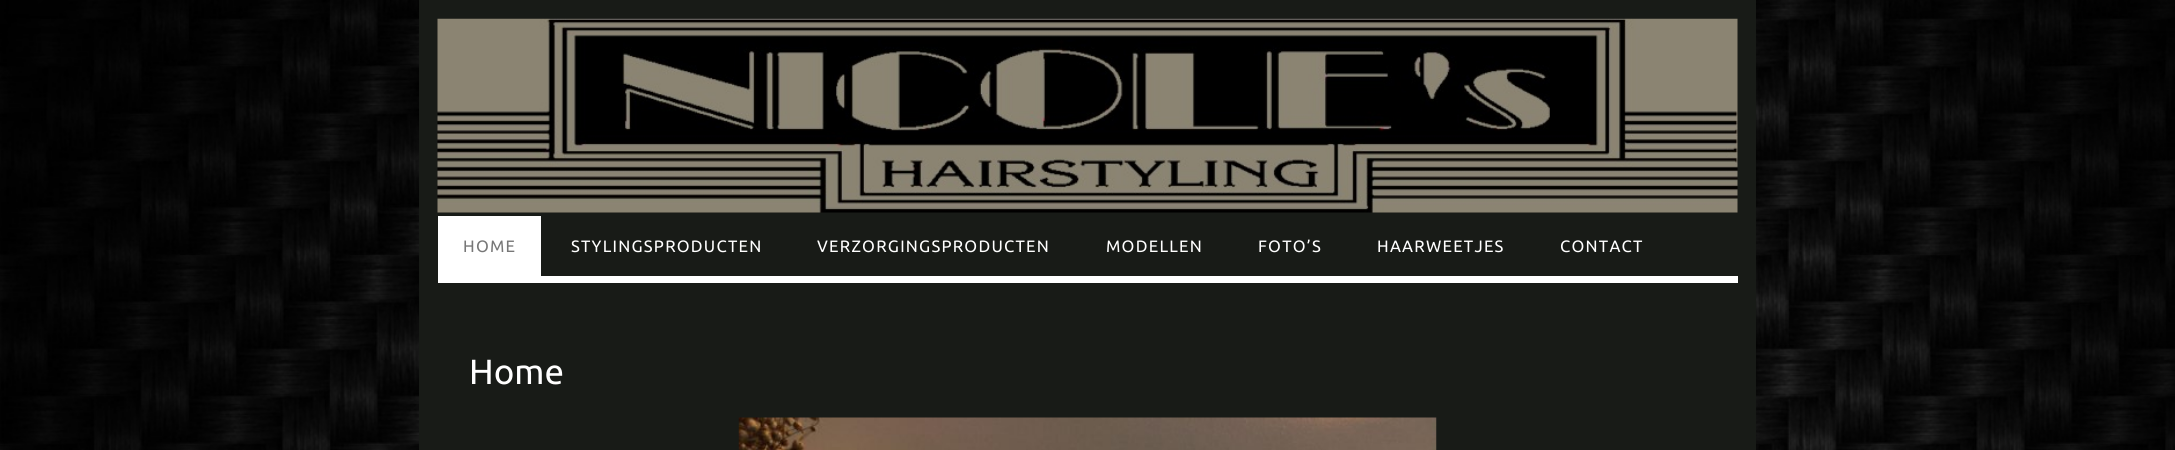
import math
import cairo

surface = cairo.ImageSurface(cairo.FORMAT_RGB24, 2175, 450)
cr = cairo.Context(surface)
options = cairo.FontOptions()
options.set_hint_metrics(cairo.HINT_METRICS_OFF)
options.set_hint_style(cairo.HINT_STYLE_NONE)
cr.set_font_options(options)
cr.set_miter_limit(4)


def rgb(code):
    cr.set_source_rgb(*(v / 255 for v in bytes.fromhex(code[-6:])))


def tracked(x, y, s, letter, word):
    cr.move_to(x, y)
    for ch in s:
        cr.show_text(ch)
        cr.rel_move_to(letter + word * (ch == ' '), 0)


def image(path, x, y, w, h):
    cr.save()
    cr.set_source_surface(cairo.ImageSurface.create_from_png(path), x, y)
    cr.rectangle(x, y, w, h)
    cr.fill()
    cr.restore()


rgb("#ffffff")
cr.paint()
image("img/1.png", 0, 0, 2175, 450)
rgb("#181b17")
cr.rectangle(419, 0, 1337, 450)
cr.fill()
image("img/2.png", 437, 18, 1301, 195)
rgb("#ffffff")
cr.rectangle(438, 276, 1300, 7)
cr.fill()
cr.rectangle(438, 216, 103, 60)
cr.fill()
image("img/3.png", 738, 417, 699, 33)
cr.select_font_face("Ubuntu")
cr.set_font_size(16.5)
rgb("#777777")
tracked(463, 252, "HOME", 1.25, 0)
rgb("#ffffff")
for x, y, s in [
    (571, 252, "STYLINGSPRODUCTEN"),
    (817, 252, "VERZORGINGSPRODUCTEN"),
    (1106, 252, "MODELLEN"),
    (1258, 252, "FOTO’S"),
    (1377, 252, "HAARWEETJES"),
    (1560, 252, "CONTACT"),
]:
    tracked(x, y, s, 1.25, 0)
cr.set_font_size(35)
cr.move_to(469, 384)
cr.show_text("Home")
surface.write_to_png("page.png")
